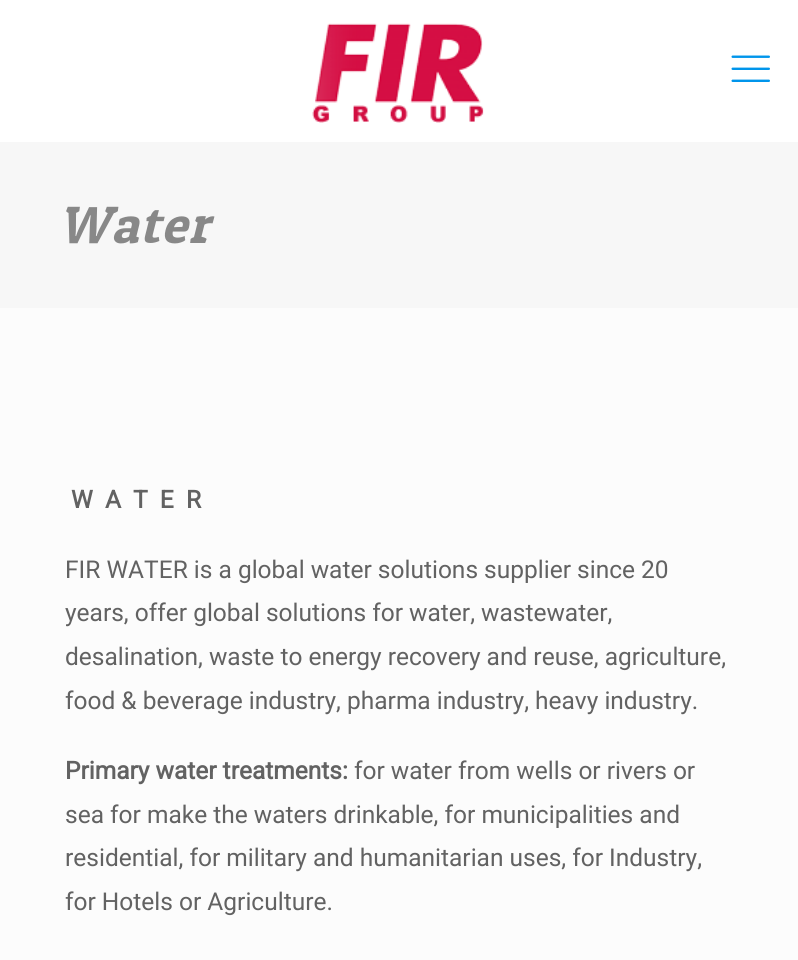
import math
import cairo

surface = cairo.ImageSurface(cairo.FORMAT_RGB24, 798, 960)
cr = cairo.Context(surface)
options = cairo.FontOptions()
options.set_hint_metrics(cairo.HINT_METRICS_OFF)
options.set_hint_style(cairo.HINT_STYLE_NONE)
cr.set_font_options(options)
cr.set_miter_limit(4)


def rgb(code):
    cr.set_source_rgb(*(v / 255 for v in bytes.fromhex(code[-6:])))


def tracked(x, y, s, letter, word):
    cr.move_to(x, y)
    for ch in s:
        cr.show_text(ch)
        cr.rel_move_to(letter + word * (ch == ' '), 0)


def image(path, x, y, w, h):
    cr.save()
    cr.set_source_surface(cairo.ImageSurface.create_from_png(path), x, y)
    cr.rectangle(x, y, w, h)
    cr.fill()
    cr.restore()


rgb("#fcfcfc")
cr.paint()
rgb("#ffffff")
cr.rectangle(0, 0, 798, 142)
cr.fill()
image("img/1.png", 312, 23, 172, 100)
image("img/2.png", 731, 55, 39, 27)
rgb("#f7f7f7")
cr.rectangle(0, 142, 798, 166)
cr.fill()
cr.select_font_face("Patua One", cairo.FONT_SLANT_ITALIC)
cr.set_font_size(52.5)
rgb("#888888")
tracked(58, 243, "Water", 1.75, 0)
cr.select_font_face("Roboto", cairo.FONT_SLANT_NORMAL, cairo.FONT_WEIGHT_BOLD)
cr.set_font_size(24.5)
rgb("#626262")
cr.move_to(71, 508)
cr.show_text("W  A  T  E  R")
cr.select_font_face("Roboto")
for x, y, s in [
    (65, 578, "FIR WATER is a global water solutions supplier since 20"),
    (65, 621, "years, offer global solutions for water, wastewater,"),
    (65, 665, "desalination, waste to energy recovery and reuse, agriculture,"),
    (65, 709, "food & beverage industry, pharma industry, heavy industry."),
]:
    cr.move_to(x, y)
    cr.show_text(s)
cr.select_font_face("Roboto", cairo.FONT_SLANT_NORMAL, cairo.FONT_WEIGHT_BOLD)
cr.move_to(65, 779)
cr.show_text("Primary water treatments:")
cr.select_font_face("Roboto")
for x, y, s in [
    (354, 779, "for water from wells or rivers or"),
    (65, 823, "sea for make the waters drinkable, for municipalities and"),
    (65, 866, "residential, for military and humanitarian uses, for Industry,"),
    (65, 910, "for Hotels or Agriculture."),
]:
    cr.move_to(x, y)
    cr.show_text(s)
surface.write_to_png("page.png")
